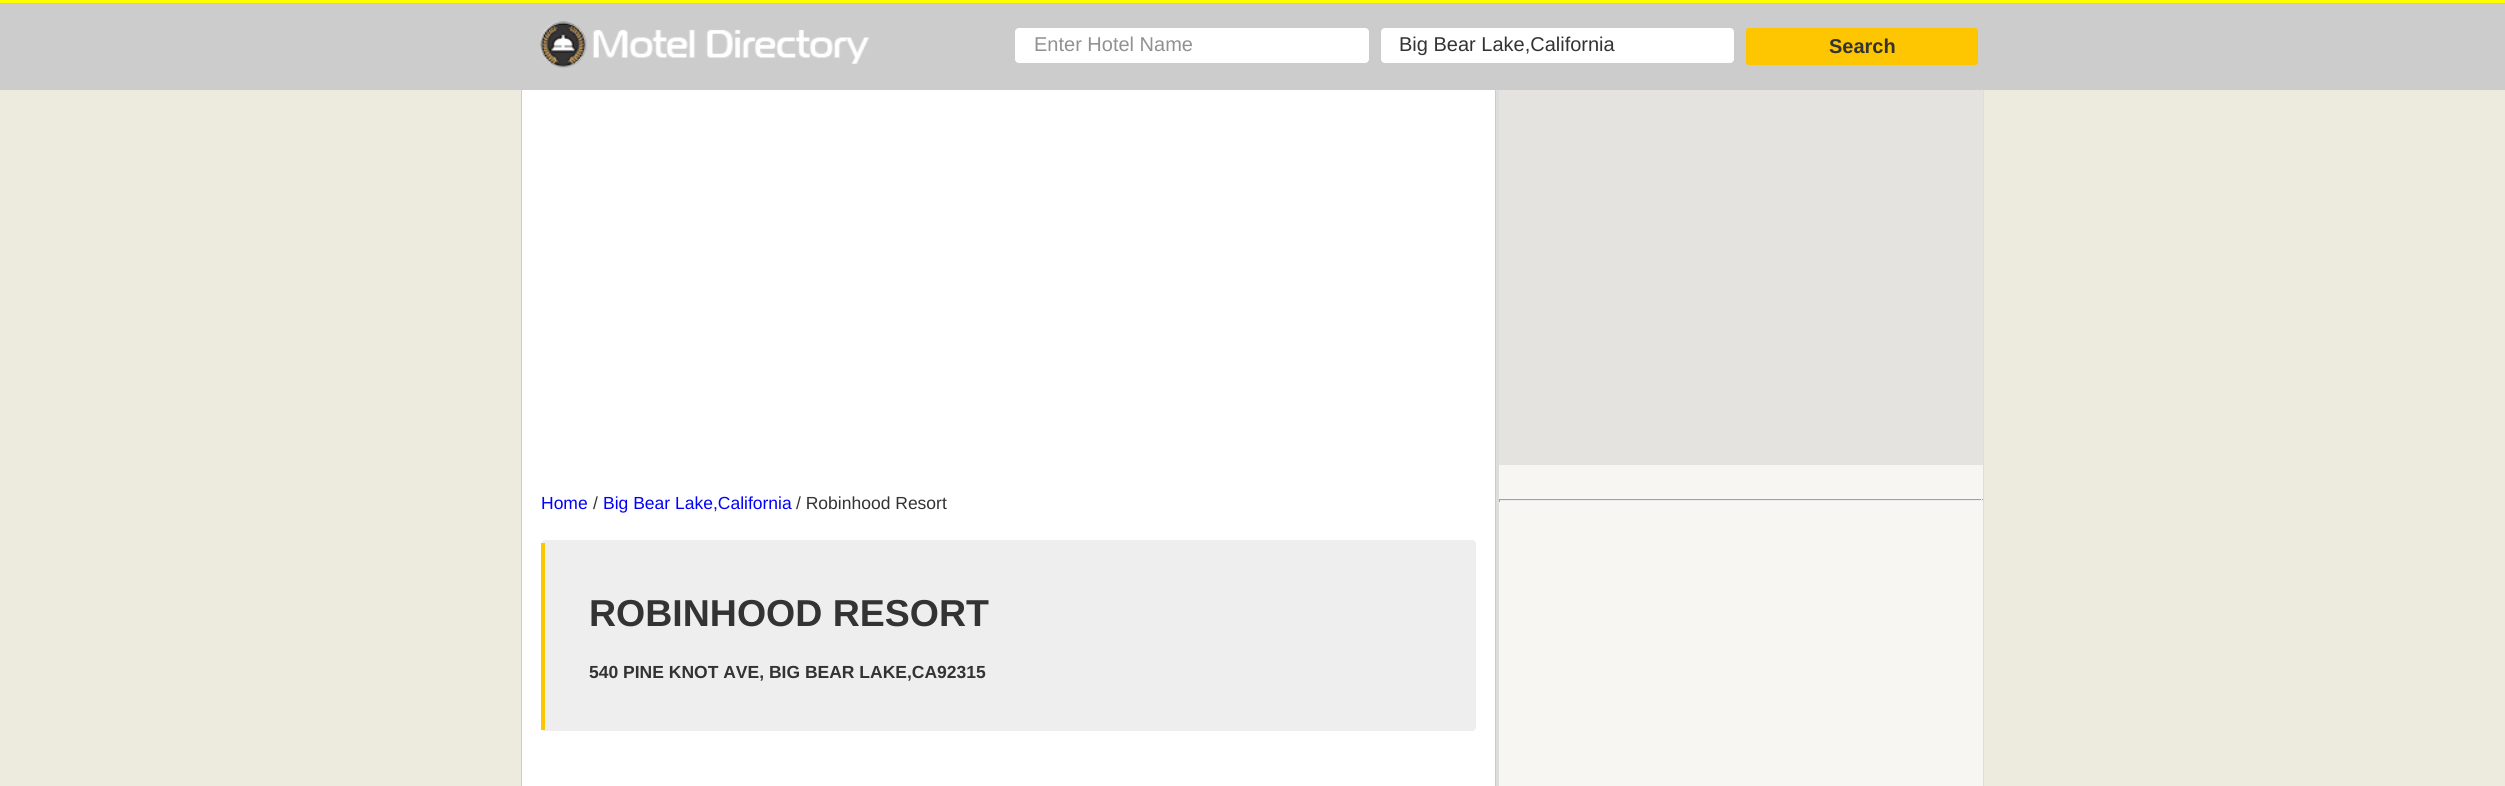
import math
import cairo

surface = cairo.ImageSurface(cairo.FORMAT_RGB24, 2505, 786)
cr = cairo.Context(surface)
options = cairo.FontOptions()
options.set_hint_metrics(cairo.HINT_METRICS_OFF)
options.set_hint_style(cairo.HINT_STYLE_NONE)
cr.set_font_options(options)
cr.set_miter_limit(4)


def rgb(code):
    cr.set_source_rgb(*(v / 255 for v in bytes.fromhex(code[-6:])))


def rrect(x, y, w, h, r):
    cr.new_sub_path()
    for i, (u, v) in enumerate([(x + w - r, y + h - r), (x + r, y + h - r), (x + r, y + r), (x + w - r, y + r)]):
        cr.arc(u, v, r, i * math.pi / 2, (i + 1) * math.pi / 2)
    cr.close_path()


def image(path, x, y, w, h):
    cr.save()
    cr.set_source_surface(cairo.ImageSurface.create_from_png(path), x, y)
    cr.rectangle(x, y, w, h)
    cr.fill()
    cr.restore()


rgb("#cccccc")
cr.paint()
rgb("#ffff00")
cr.rectangle(0, 0, 2505, 3)
cr.fill()
image("img/1.png", 540, 21, 329, 47)
rgb("#ffffff")
rrect(1015, 28, 354, 35, 4)
cr.fill()
rrect(1381, 28, 353, 35, 4)
cr.fill()
rgb("#fdc600")
rrect(1746, 28, 232, 37, 2.5)
cr.fill()
for x, y, w, h, color in [
    (0, 90, 2505, 696, "#edebdd"),
    (522, 90, 973, 696, "#ffffff"),
    (1495, 90, 1, 696, "#cccccc"),
    (521, 90, 1, 696, "#cccccc"),
]:
    rgb(color)
    cr.rectangle(x, y, w, h)
    cr.fill()
rgb("#eeeeee")
rrect(541, 540, 935, 191, 4)
cr.fill()
for x, y, w, h, color in [
    (541, 543, 4, 187, "#fdc600"),
    (1499, 465, 484, 321, "#f7f6f2"),
    (1983, 90, 1, 696, "#dddddd"),
    (1496, 90, 3, 696, "#dddddd"),
    (1499, 90, 484, 375, "#e5e3df"),
    (1499, 499, 484, 1, "#9f9f9f"),
    (1981, 499, 1, 3, "#eeeeee"),
    (1499, 500, 484, 1, "#eeeeee"),
    (1499, 499, 1, 3, "#9f9f9f"),
]:
    rgb(color)
    cr.rectangle(x, y, w, h)
    cr.fill()
cr.select_font_face("Liberation Sans")
cr.set_font_size(20)
rgb("#919191")
cr.move_to(1034, 51)
cr.show_text("Enter Hotel Name")
rgb("#333333")
cr.move_to(1399, 51)
cr.show_text("Big Bear Lake,California")
cr.select_font_face("Liberation Sans", cairo.FONT_SLANT_NORMAL, cairo.FONT_WEIGHT_BOLD)
cr.move_to(1829, 53)
cr.show_text("Search")
cr.select_font_face("Liberation Sans")
cr.set_font_size(17.5)
rgb("#0000ff")
cr.move_to(541, 509)
cr.show_text("Home")
rgb("#333333")
cr.move_to(593, 509)
cr.show_text("/")
rgb("#0000ff")
cr.move_to(603, 509)
cr.show_text("Big Bear Lake,California")
rgb("#333333")
cr.move_to(796, 509)
cr.show_text("/ Robinhood Resort")
cr.select_font_face("Liberation Sans", cairo.FONT_SLANT_NORMAL, cairo.FONT_WEIGHT_BOLD)
cr.set_font_size(37.5)
cr.move_to(589, 626)
cr.show_text("ROBINHOOD RESORT")
cr.set_font_size(17.5)
cr.move_to(589, 678)
cr.show_text("540 PINE KNOT AVE, BIG BEAR LAKE,CA92315")
surface.write_to_png("page.png")
